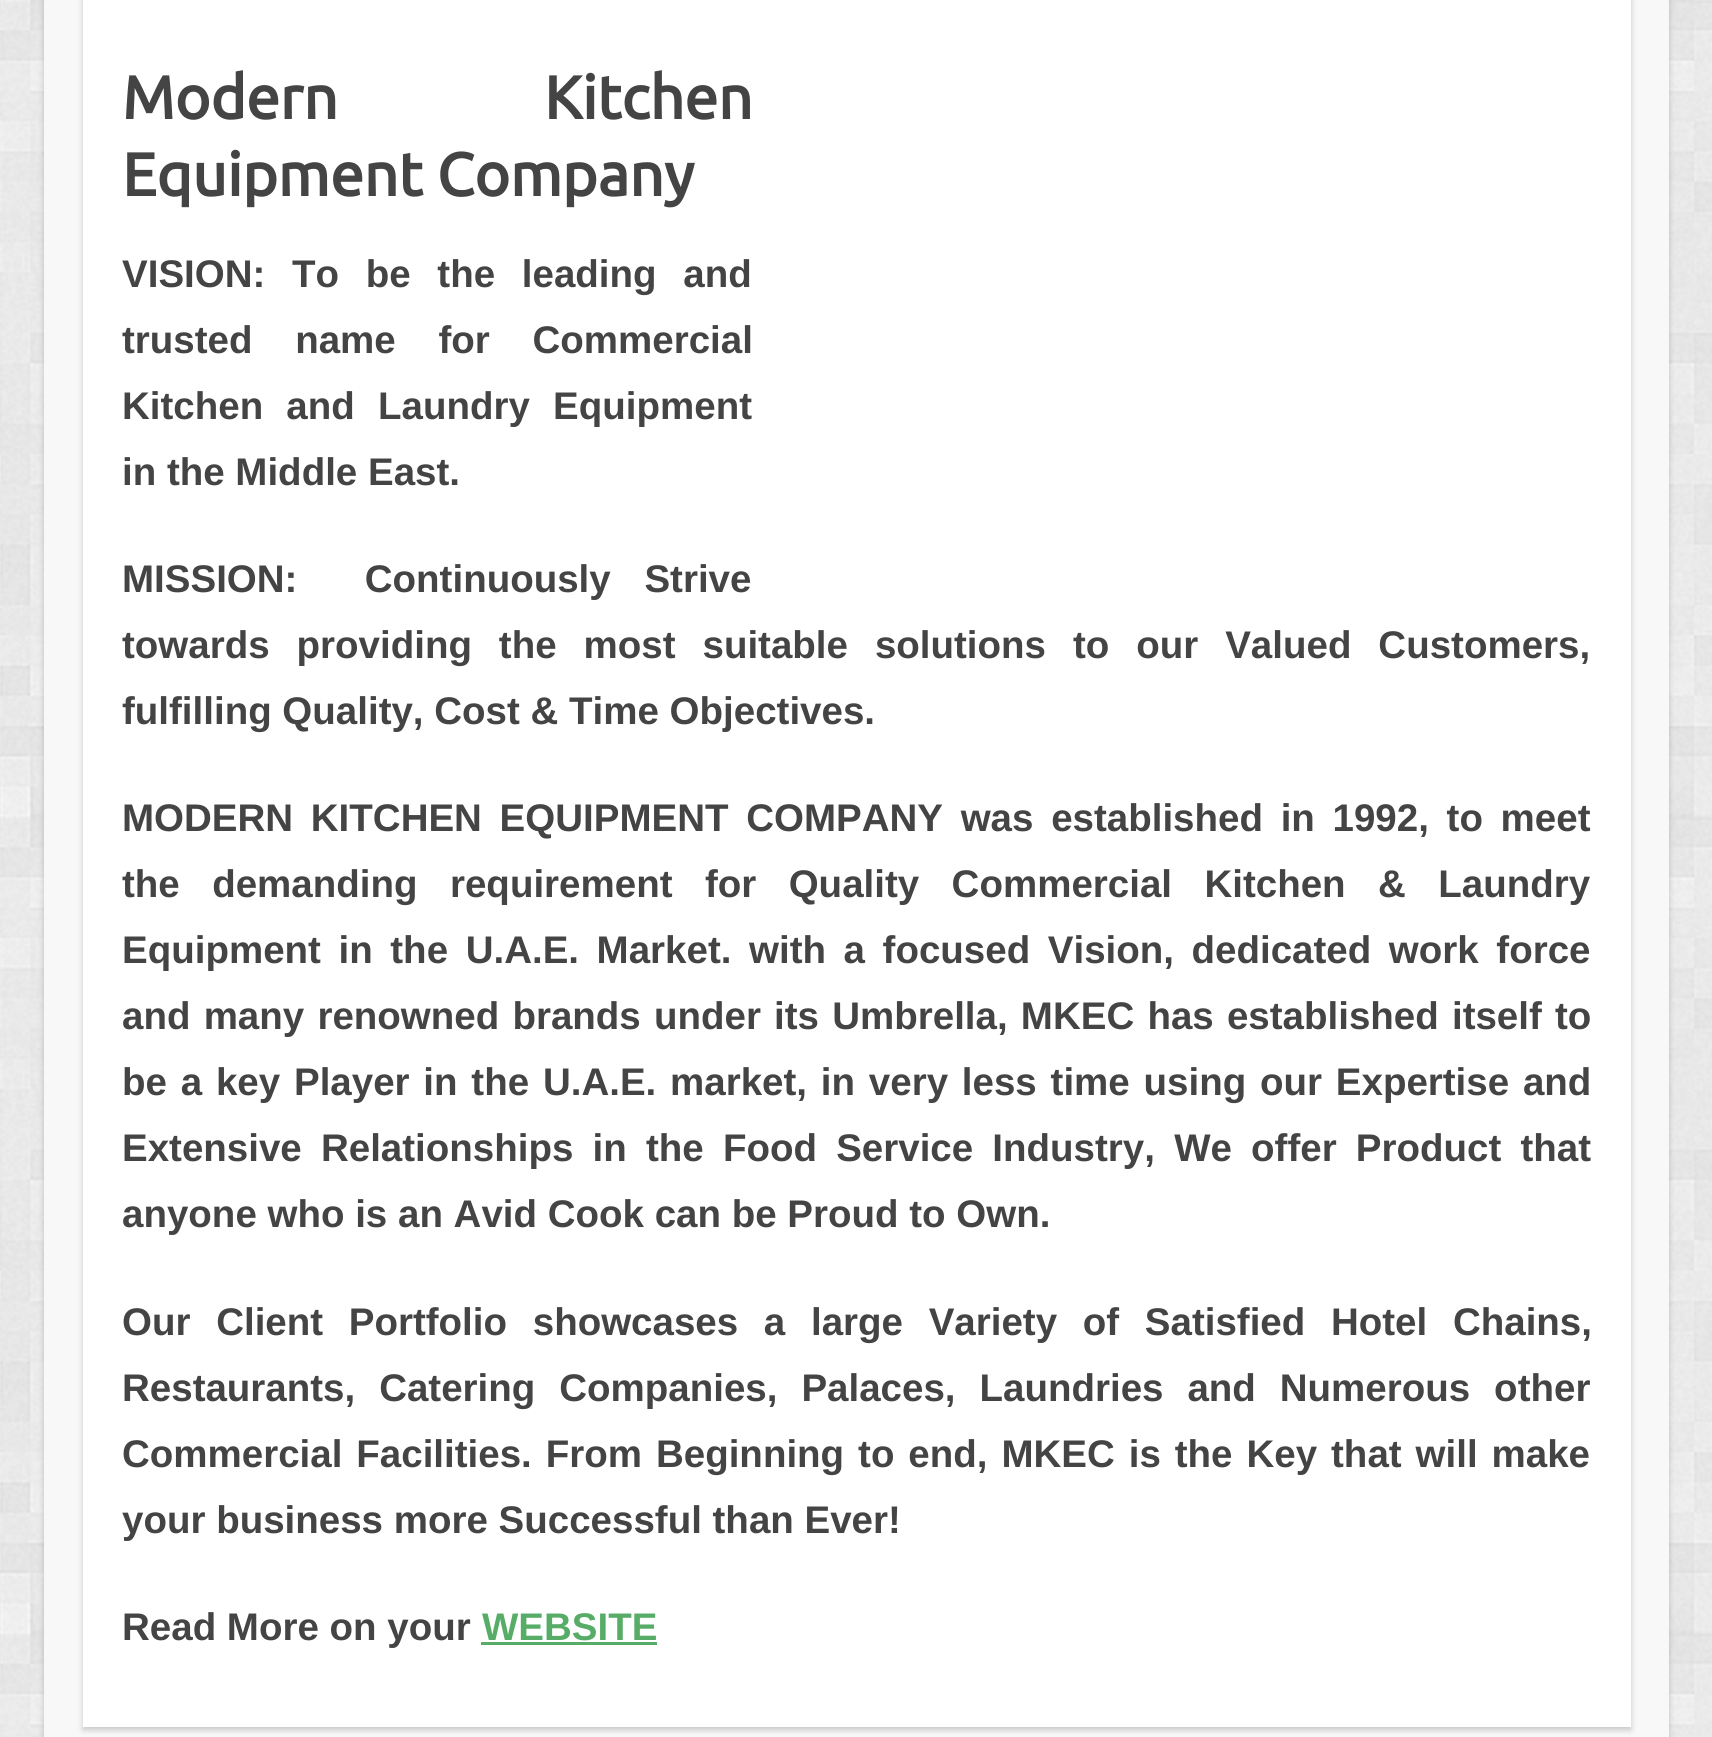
import math
import cairo

surface = cairo.ImageSurface(cairo.FORMAT_RGB24, 1712, 1737)
cr = cairo.Context(surface)
options = cairo.FontOptions()
options.set_hint_metrics(cairo.HINT_METRICS_OFF)
options.set_hint_style(cairo.HINT_STYLE_NONE)
cr.set_font_options(options)
cr.set_miter_limit(4)


def rgb(code):
    cr.set_source_rgb(*(v / 255 for v in bytes.fromhex(code[-6:])))


def tracked(x, y, s, letter, word):
    cr.move_to(x, y)
    for ch in s:
        cr.show_text(ch)
        cr.rel_move_to(letter + word * (ch == ' '), 0)


def rrect(x, y, w, h, r):
    cr.new_sub_path()
    for i, (u, v) in enumerate([(x + w - r, y + h - r), (x + r, y + h - r), (x + r, y + r), (x + w - r, y + r)]):
        cr.arc(u, v, r, i * math.pi / 2, (i + 1) * math.pi / 2)
    cr.close_path()


def soft_shadow(x, y, w, h, r, blur, alpha):
    cr.push_group_with_content(cairo.CONTENT_ALPHA)
    cr.set_operator(cairo.OPERATOR_SOURCE)
    for i in range(15, -16, -2):
        e = blur * i / 6
        if min(w, h) + 2 * e > 0:
            cr.set_source_rgba(0, 0, 0, alpha * math.erfc((i - 1) / 8.5) / 2)
            rrect(x - e, y - e, w + 2 * e, h + 2 * e, max(0, min(r + e + blur * .6, min(w, h) / 2 + e)))
            cr.fill()
    cr.mask(cr.pop_group())


def image(path, x, y, w, h):
    cr.save()
    cr.set_source_surface(cairo.ImageSurface.create_from_png(path), x, y)
    cr.rectangle(x, y, w, h)
    cr.fill()
    cr.restore()


rgb("#ffffff")
cr.paint()
image("img/1.png", 0, 0, 1712, 1737)
rgb("#000000")
soft_shadow(44, -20, 1625, 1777, 11, 3, 0.2)
rgb("#f8f8f8")
cr.rectangle(44, 0, 1625, 1737)
cr.fill()
rgb("#000000")
soft_shadow(83, -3, 1548, 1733, 0, 3, 0.2)
rgb("#ffffff")
cr.rectangle(83, 0, 1548, 1727)
cr.fill()
rgb("#57ad68")
cr.rectangle(481, 1642, 176, 3)
cr.fill()
cr.select_font_face("Ubuntu", cairo.FONT_SLANT_NORMAL, cairo.FONT_WEIGHT_BOLD)
cr.set_font_size(60.5)
rgb("#444444")
tracked(122, 119, "Modern Kitchen", 0, 192)
cr.move_to(122, 196)
cr.show_text("Equipment Company")
cr.select_font_face("Liberation Sans", cairo.FONT_SLANT_NORMAL, cairo.FONT_WEIGHT_BOLD)
cr.set_font_size(38.5)
tracked(122, 287, "VISION: To be the leading and", 0, 16)
tracked(122, 353, "trusted name for Commercial", 0, 32)
tracked(122, 419, "Kitchen and Laundry Equipment", 0, 12.5)
cr.move_to(122, 485)
cr.show_text("in the Middle East.")
tracked(122, 592, "MISSION:  Continuously Strive", 0, 23)
tracked(122, 658, "towards providing the most suitable solutions to our Valued Customers,", 0, 16.25)
cr.move_to(122, 724)
cr.show_text("fulfilling Quality, Cost & Time Objectives.")
tracked(122, 831, "MODERN KITCHEN EQUIPMENT COMPANY was established in 1992, to meet", 0, 7)
tracked(122, 897, "the demanding requirement for Quality Commercial Kitchen & Laundry", 0, 21.75)
tracked(122, 963, "Equipment in the U.A.E. Market. with a focused Vision, dedicated work force", 0, 6.9)
tracked(122, 1029, "and many renowned brands under its Umbrella, MKEC has established itself to", 0, 2.5)
tracked(122, 1095, "be a key Player in the U.A.E. market, in very less time using our Expertise and", 0, 3.1)
tracked(122, 1161, "Extensive Relationships in the Food Service Industry, We offer Product that", 0, 8.5)
cr.move_to(122, 1227)
cr.show_text("anyone who is an Avid Cook can be Proud to Own.")
tracked(122, 1335, "Our Client Portfolio showcases a large Variety of Satisfied Hotel Chains,", 0, 15)
tracked(122, 1401, "Restaurants, Catering Companies, Palaces, Laundries and Numerous other", 0, 13.25)
tracked(122, 1467, "Commercial Facilities. From Beginning to end, MKEC is the Key that will make", 0, 3.25)
cr.move_to(122, 1533)
cr.show_text("your business more Successful than Ever!")
cr.move_to(122, 1640)
cr.show_text("Read More on your")
rgb("#57ad68")
cr.move_to(482, 1640)
cr.show_text("WEBSITE")
surface.write_to_png("page.png")
